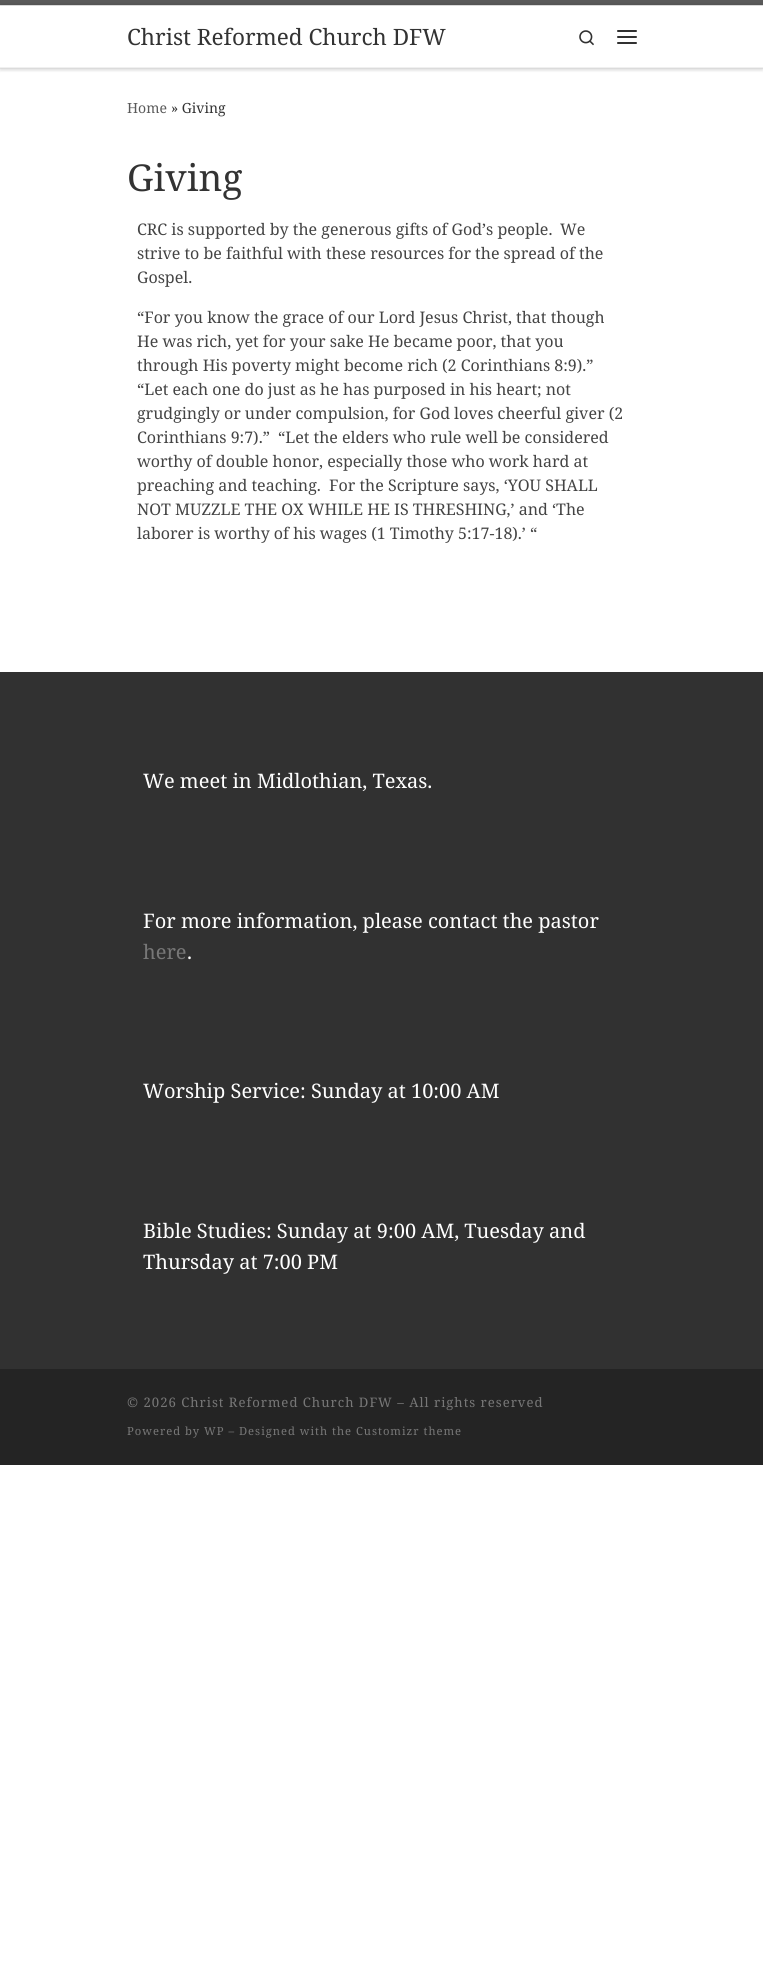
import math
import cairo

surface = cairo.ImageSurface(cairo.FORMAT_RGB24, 763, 1974)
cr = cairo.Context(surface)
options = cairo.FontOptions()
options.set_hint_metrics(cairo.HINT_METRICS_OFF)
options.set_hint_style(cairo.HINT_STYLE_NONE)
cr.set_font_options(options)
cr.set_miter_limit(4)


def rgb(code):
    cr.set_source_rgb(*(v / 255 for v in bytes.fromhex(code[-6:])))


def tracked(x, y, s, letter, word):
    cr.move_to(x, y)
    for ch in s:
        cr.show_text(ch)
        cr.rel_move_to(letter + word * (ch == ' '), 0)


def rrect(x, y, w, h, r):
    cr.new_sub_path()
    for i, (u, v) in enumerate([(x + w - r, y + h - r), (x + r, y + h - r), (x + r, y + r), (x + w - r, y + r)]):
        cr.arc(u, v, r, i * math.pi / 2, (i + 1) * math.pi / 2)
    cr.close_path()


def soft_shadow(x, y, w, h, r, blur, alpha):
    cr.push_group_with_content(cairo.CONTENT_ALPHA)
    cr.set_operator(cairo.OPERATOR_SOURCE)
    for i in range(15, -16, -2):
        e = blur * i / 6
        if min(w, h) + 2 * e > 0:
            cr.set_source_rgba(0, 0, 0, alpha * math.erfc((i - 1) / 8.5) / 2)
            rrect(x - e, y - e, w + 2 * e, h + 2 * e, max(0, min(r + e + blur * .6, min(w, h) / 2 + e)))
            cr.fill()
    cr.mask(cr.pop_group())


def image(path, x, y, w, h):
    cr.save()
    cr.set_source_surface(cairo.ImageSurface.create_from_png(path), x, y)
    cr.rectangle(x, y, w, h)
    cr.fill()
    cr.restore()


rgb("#ffffff")
cr.paint()
cr.save()
cr.rectangle(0, 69, 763, 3)
cr.clip()
rgb("#666666")
soft_shadow(0, 2, 763, 69, 0, 1, 0.08)
cr.restore()
for x, y, w, h, color in [
    (0, 0, 763, 5, "#5a5a5a"),
    (0, 5, 763, 1, "#ececec"),
    (0, 68, 763, 1, "#efefef"),
]:
    rgb(color)
    cr.rectangle(x, y, w, h)
    cr.fill()
cr.save()
cr.set_fill_rule(cairo.FILL_RULE_EVEN_ODD)
cr.new_path()
cr.move_to(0, 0)
cr.line_to(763, 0)
cr.line_to(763, 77)
cr.line_to(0, 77)
cr.close_path()
cr.move_to(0, 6)
cr.line_to(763, 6)
cr.line_to(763, 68)
cr.line_to(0, 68)
cr.close_path()
cr.clip()
rgb("#000000")
soft_shadow(0, 6, 763, 62, 0, 2.5, 0.2)
cr.restore()
image("img/1.png", 579, 30, 15, 16)
rgb("#313131")
rrect(617, 30, 20, 2, 1)
cr.fill()
rrect(617, 36, 20, 2, 1)
cr.fill()
rrect(617, 42, 20, 2, 1)
cr.fill()
for x, y, w, h, color in [
    (0, 67, 763, 1, "#f0f0f0"),
    (0, 672, 763, 697, "#313131"),
    (0, 1369, 763, 96, "#242424"),
]:
    rgb(color)
    cr.rectangle(x, y, w, h)
    cr.fill()
cr.select_font_face("Noto Serif")
cr.set_font_size(22.5)
rgb("#333333")
cr.move_to(127, 45)
cr.show_text("Christ Reformed Church DFW")
cr.set_font_size(14)
rgb("#5a5a5a")
cr.move_to(127, 113)
cr.show_text("Home")
rgb("#333333")
cr.move_to(171, 113)
cr.show_text("» Giving")
cr.set_font_size(37)
cr.move_to(127, 191)
cr.show_text("Giving")
cr.set_font_size(16)
rgb("#444444")
for x, y, s in [
    (137, 235, "CRC is supported by the generous gifts of God’s people."),
    (560, 235, "We"),
    (137, 259, "strive to be faithful with these resources for the spread of the"),
    (137, 283, "Gospel."),
    (137, 323, "“For you know the grace of our Lord Jesus Christ, that though"),
    (137, 347, "He was rich, yet for your sake He became poor, that you"),
    (137, 371, "through His poverty might become rich (2 Corinthians 8:9).”"),
    (137, 395, "“Let each one do just as he has purposed in his heart; not"),
    (137, 419, "grudgingly or under compulsion, for God loves cheerful giver (2"),
    (137, 443, "Corinthians 9:7).”"),
    (278, 443, "“Let the elders who rule well be considered"),
    (137, 467, "worthy of double honor, especially those who work hard at"),
    (137, 491, "preaching and teaching.  For the Scripture says, ‘YOU SHALL"),
    (137, 515, "NOT MUZZLE THE OX WHILE HE IS THRESHING,’ and ‘The"),
    (137, 539, "laborer is worthy of his wages (1 Timothy 5:17-18).’ “"),
]:
    cr.move_to(x, y)
    cr.show_text(s)
cr.set_font_size(20)
rgb("#ffffff")
cr.move_to(143, 788)
cr.show_text("We meet in Midlothian, Texas.")
cr.move_to(143, 928)
cr.show_text("For more information, please contact the pastor")
rgb("#777777")
cr.move_to(143, 959)
cr.show_text("here")
rgb("#ffffff")
for x, y, s in [
    (187, 959, "."),
    (143, 1098, "Worship Service: Sunday at 10:00 AM"),
    (143, 1238, "Bible Studies: Sunday at 9:00 AM, Tuesday and"),
    (143, 1269, "Thursday at 7:00 PM"),
]:
    cr.move_to(x, y)
    cr.show_text(s)
cr.set_font_size(13.1)
rgb("#777777")
tracked(127, 1407, "© 2026 Christ Reformed Church DFW – All rights reserved", 1, 0)
cr.set_font_size(11.2)
tracked(127, 1435, "Powered by WP – Designed with the Customizr theme", 1, 0)
surface.write_to_png("page.png")
